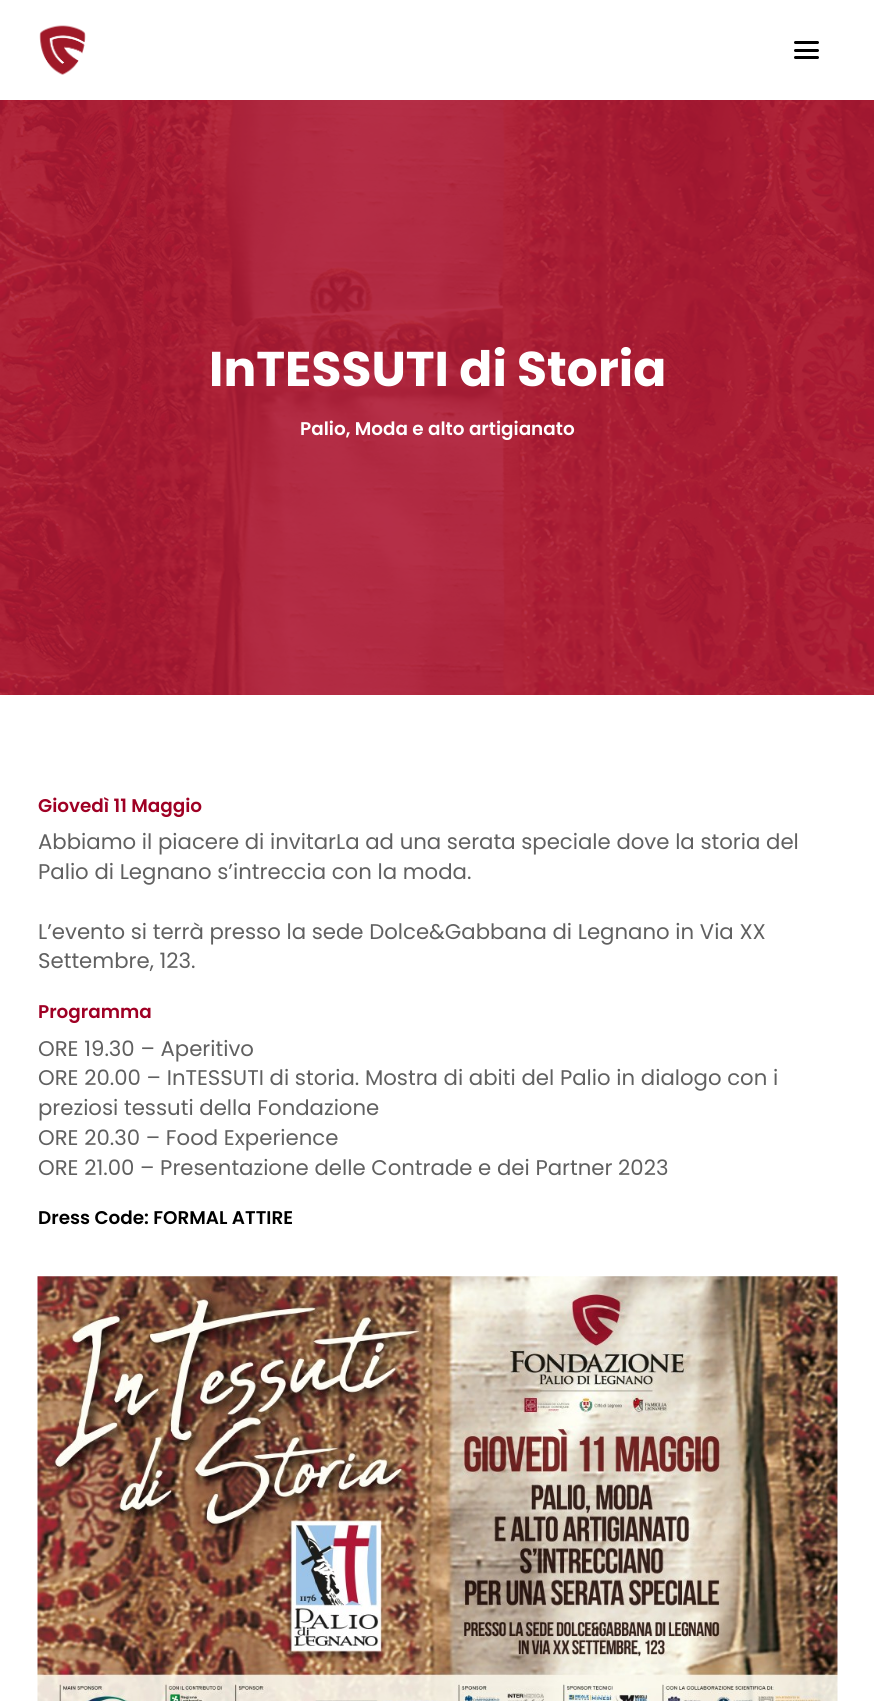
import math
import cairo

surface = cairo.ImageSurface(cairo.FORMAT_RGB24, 874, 1701)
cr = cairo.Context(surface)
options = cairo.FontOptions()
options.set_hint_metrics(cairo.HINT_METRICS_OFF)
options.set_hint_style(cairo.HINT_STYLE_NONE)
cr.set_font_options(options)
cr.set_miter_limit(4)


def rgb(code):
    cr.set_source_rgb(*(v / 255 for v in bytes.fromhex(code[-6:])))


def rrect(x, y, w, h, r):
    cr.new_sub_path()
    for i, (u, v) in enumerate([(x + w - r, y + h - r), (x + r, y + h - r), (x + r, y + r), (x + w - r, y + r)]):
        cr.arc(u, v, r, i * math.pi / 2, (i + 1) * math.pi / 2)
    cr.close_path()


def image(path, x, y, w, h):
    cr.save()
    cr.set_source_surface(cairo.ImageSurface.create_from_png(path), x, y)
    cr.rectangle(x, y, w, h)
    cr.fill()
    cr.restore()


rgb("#ffffff")
cr.paint()
image("img/1.png", 39, 25, 47, 50)
rgb("#000000")
rrect(794, 41, 25, 3, 1.5)
cr.fill()
rrect(794, 49, 25, 3, 1.5)
cr.fill()
rrect(794, 56, 25, 3, 1.5)
cr.fill()
image("img/2.png", 0, 100, 874, 595)
image("img/3.png", 37, 1276, 801, 425)
cr.select_font_face("Poppins", cairo.FONT_SLANT_NORMAL, cairo.FONT_WEIGHT_BOLD)
cr.set_font_size(48.75)
rgb("#ffffff")
cr.move_to(209, 386)
cr.show_text("InTESSUTI di Storia")
cr.select_font_face("Poppins SemiBold")
cr.set_font_size(18.4)
cr.move_to(300, 435)
cr.show_text("Palio, Moda e alto artigianato")
rgb("#9f0024")
cr.move_to(38, 812)
cr.show_text("Giovedì 11 Maggio")
cr.select_font_face("Poppins")
cr.set_font_size(21.25)
rgb("#606060")
for x, y, s in [
    (38, 849, "Abbiamo il piacere di invitarLa ad una serata speciale dove la storia del"),
    (38, 879, "Palio di Legnano s’intreccia con la moda."),
    (38, 939, "L’evento si terrà presso la sede Dolce&Gabbana di Legnano in Via XX"),
    (38, 968, "Settembre, 123."),
]:
    cr.move_to(x, y)
    cr.show_text(s)
cr.select_font_face("Poppins SemiBold")
cr.set_font_size(18.4)
rgb("#9f0024")
cr.move_to(38, 1018)
cr.show_text("Programma")
cr.select_font_face("Poppins")
cr.set_font_size(21.25)
rgb("#606060")
for x, y, s in [
    (38, 1056, "ORE 19.30 – Aperitivo"),
    (38, 1085, "ORE 20.00 – InTESSUTI di storia. Mostra di abiti del Palio in dialogo con i"),
    (38, 1115, "preziosi tessuti della Fondazione"),
    (38, 1145, "ORE 20.30 – Food Experience"),
    (38, 1175, "ORE 21.00 – Presentazione delle Contrade e dei Partner 2023"),
]:
    cr.move_to(x, y)
    cr.show_text(s)
cr.select_font_face("Poppins SemiBold")
cr.set_font_size(18.4)
rgb("#000000")
cr.move_to(38, 1224)
cr.show_text("Dress Code: FORMAL ATTIRE")
surface.write_to_png("page.png")
